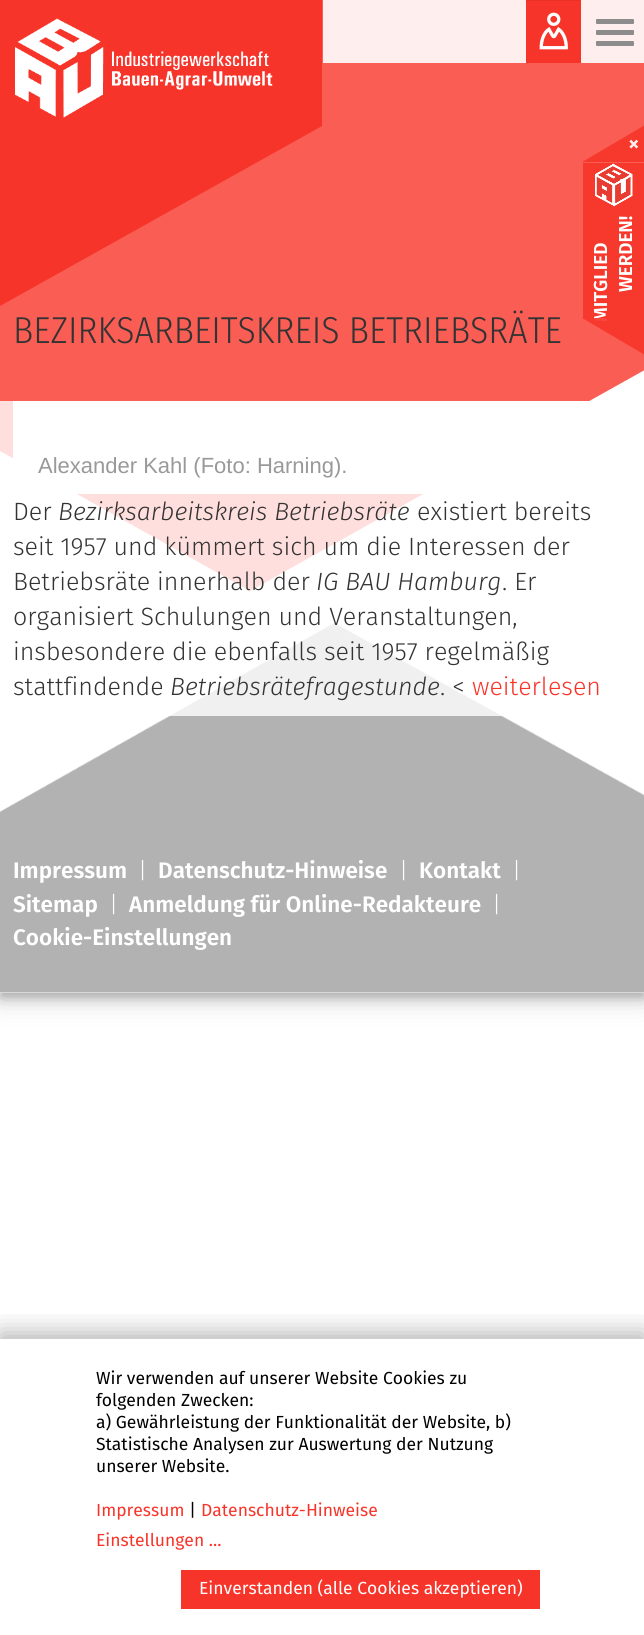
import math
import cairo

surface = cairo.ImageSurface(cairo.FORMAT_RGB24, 644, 1635)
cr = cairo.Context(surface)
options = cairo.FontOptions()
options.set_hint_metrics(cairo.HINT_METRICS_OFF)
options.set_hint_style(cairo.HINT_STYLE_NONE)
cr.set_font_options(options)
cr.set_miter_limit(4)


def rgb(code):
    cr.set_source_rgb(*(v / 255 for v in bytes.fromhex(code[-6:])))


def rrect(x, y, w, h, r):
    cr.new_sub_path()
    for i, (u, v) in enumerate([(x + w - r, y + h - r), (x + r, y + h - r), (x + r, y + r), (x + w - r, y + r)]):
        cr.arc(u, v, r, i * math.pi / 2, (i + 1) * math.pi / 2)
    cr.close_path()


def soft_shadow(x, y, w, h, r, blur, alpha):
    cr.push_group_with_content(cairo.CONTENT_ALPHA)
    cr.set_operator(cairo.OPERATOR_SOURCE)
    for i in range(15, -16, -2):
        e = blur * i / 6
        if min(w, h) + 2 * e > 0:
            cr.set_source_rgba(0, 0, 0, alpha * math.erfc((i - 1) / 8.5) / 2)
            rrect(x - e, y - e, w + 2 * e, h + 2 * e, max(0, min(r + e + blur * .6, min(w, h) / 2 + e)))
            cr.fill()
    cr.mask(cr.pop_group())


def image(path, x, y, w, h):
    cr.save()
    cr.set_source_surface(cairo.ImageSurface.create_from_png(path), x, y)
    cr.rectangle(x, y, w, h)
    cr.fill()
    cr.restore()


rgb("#ffffff")
cr.paint()
rgb("#000000")
soft_shadow(0, 8, 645, 992, 0, 12.5, 0.19)
soft_shadow(0, 5, 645, 993, 0, 5, 0.2)
rgb("#ffffff")
cr.rectangle(0, 370, 644, 623)
cr.fill()
rgb("#f95d54")
cr.set_fill_rule(cairo.FILL_RULE_EVEN_ODD)
cr.new_path()
cr.move_to(-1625, -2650)
cr.line_to(250, -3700)
cr.line_to(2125, -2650)
cr.line_to(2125, -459)
cr.line_to(250, 591)
cr.line_to(-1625, -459)
cr.close_path()
cr.fill()
rgb("#f73429")
cr.new_path()
cr.move_to(-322, -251)
cr.line_to(0, -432)
cr.line_to(322, -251)
cr.line_to(322, 126)
cr.line_to(0, 306)
cr.line_to(-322, 126)
cr.close_path()
cr.fill()
image("img/1.png", 15, 18, 258, 100)
for x, y, w, h, color in [
    (323, 0, 321, 63, "#feefee"),
    (526, 1, 55, 62, "#f73429"),
    (526, 0, 55, 1, "#eb3127"),
]:
    rgb(color)
    cr.rectangle(x, y, w, h)
    cr.fill()
image("img/2.png", 539, 12, 29, 38)
rgb("#8c8c8c")
rrect(596, 19, 38, 5, 1)
cr.fill()
rrect(596, 30, 38, 5, 1)
cr.fill()
rrect(596, 41, 38, 5, 1)
cr.fill()
rgb("#f7382d")
cr.set_fill_rule(cairo.FILL_RULE_WINDING)
cr.new_path()
cr.move_to(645, 162)
cr.line_to(582, 162)
cr.line_to(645, 125)
cr.close_path()
cr.fill()
cr.rectangle(583, 163, 61, 155)
cr.fill()
image("img/3.png", 595, 163, 38, 44)
cr.set_source_rgba(1, 1, 1, 0.8)
cr.rectangle(0, 401, 590, 93)
cr.fill()
rgb("#ffffff")
cr.rectangle(13, 401, 576, 93)
cr.fill()
image("img/4.png", 0, 623, 644, 370)
cr.set_source_rgba(1, 1, 1, 0.8)
cr.rectangle(77, 494, 425, 222)
cr.fill()
cr.save()
cr.rectangle(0, 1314, 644, 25)
cr.clip()
rgb("#000000")
soft_shadow(0, 1333, 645, 296, 0, 12.5, 0.3)
cr.restore()
rgb("#f73429")
cr.rectangle(181, 1570, 359, 39)
cr.fill()
cr.select_font_face("Fira Sans SemiBold")
cr.set_font_size(22.5)
rgb("#feefee")
cr.move_to(628, 151)
cr.show_text("×")
cr.set_font_size(18.75)
rgb("#ffffff")
cr.save()
cr.translate(607, 322)
cr.rotate(-90 * math.pi / 180)
cr.move_to(0, 0)
cr.show_text("MITGLIED")
cr.restore()
cr.save()
cr.translate(632, 292)
cr.rotate(-90 * math.pi / 180)
cr.move_to(0, 0)
cr.show_text("WERDEN!")
cr.restore()
cr.set_source_rgba(0.969, 0.204, 0.161, 0.9)
cr.new_path()
cr.move_to(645, 318)
cr.line_to(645, 355)
cr.line_to(582, 318)
cr.close_path()
cr.fill()
cr.select_font_face("Fira Sans Condensed Light")
cr.set_font_size(37.5)
rgb("#333333")
cr.move_to(13, 343)
cr.show_text("BEZIRKSARBEITSKREIS BETRIEBSRÄTE")
cr.select_font_face("Liberation Sans")
cr.set_font_size(22)
rgb("#999999")
cr.move_to(38, 473)
cr.show_text("Alexander Kahl (Foto: Harning).")
cr.select_font_face("Fira Sans Light")
cr.set_font_size(25)
rgb("#333333")
cr.move_to(13, 520)
cr.show_text("Der")
cr.select_font_face("Fira Sans Light", cairo.FONT_SLANT_ITALIC)
cr.move_to(58, 520)
cr.show_text("Bezirksarbeitskreis Betriebsräte")
cr.select_font_face("Fira Sans Light")
for x, y, s in [
    (417, 520, "existiert bereits"),
    (13, 555, "seit 1957 und kümmert sich um die Interessen der"),
    (13, 590, "Betriebsräte innerhalb der"),
]:
    cr.move_to(x, y)
    cr.show_text(s)
cr.select_font_face("Fira Sans Light", cairo.FONT_SLANT_ITALIC)
cr.move_to(316, 590)
cr.show_text("IG BAU Hamburg")
cr.select_font_face("Fira Sans Light")
for x, y, s in [
    (502, 590, ". Er"),
    (13, 625, "organisiert Schulungen und Veranstaltungen,"),
    (13, 660, "insbesondere die ebenfalls seit 1957 regelmäßig"),
    (13, 695, "stattfindende"),
]:
    cr.move_to(x, y)
    cr.show_text(s)
cr.select_font_face("Fira Sans Light", cairo.FONT_SLANT_ITALIC)
cr.move_to(170, 695)
cr.show_text("Betriebsrätefragestunde")
cr.select_font_face("Fira Sans Light")
cr.move_to(440, 695)
cr.show_text(". <")
rgb("#f73429")
cr.move_to(472, 695)
cr.show_text("weiterlesen")
cr.select_font_face("Fira Sans SemiBold")
cr.set_font_size(22.5)
rgb("#ffffff")
cr.move_to(13, 878)
cr.show_text("Impressum")
cr.select_font_face("Fira Sans Light")
cr.move_to(138, 878)
cr.show_text("|")
cr.select_font_face("Fira Sans SemiBold")
cr.move_to(158, 878)
cr.show_text("Datenschutz-Hinweise")
cr.select_font_face("Fira Sans Light")
cr.move_to(399, 878)
cr.show_text("|")
cr.select_font_face("Fira Sans SemiBold")
cr.move_to(419, 878)
cr.show_text("Kontakt")
cr.select_font_face("Fira Sans Light")
cr.move_to(512, 878)
cr.show_text("|")
cr.select_font_face("Fira Sans SemiBold")
cr.move_to(13, 912)
cr.show_text("Sitemap")
cr.select_font_face("Fira Sans Light")
cr.move_to(109, 912)
cr.show_text("|")
cr.select_font_face("Fira Sans SemiBold")
cr.move_to(129, 912)
cr.show_text("Anmeldung für Online-Redakteure")
cr.select_font_face("Fira Sans Light")
cr.move_to(492, 912)
cr.show_text("|")
cr.select_font_face("Fira Sans SemiBold")
cr.move_to(13, 945)
cr.show_text("Cookie-Einstellungen")
cr.select_font_face("Fira Sans")
cr.set_font_size(17.5)
rgb("#000000")
for x, y, s in [
    (96, 1384, "Wir verwenden auf unserer Website Cookies zu"),
    (96, 1406, "folgenden Zwecken:"),
    (96, 1428, "a) Gewährleistung der Funktionalität der Website, b)"),
    (96, 1450, "Statistische Analysen zur Auswertung der Nutzung"),
    (96, 1472, "unserer Website."),
]:
    cr.move_to(x, y)
    cr.show_text(s)
rgb("#f73429")
cr.move_to(96, 1516)
cr.show_text("Impressum")
rgb("#000000")
cr.move_to(189, 1516)
cr.show_text("|")
rgb("#f73429")
cr.move_to(201, 1516)
cr.show_text("Datenschutz-Hinweise")
cr.move_to(96, 1546)
cr.show_text("Einstellungen ...")
rgb("#ffffff")
cr.move_to(199, 1594)
cr.show_text("Einverstanden (alle Cookies akzeptieren)")
surface.write_to_png("page.png")
